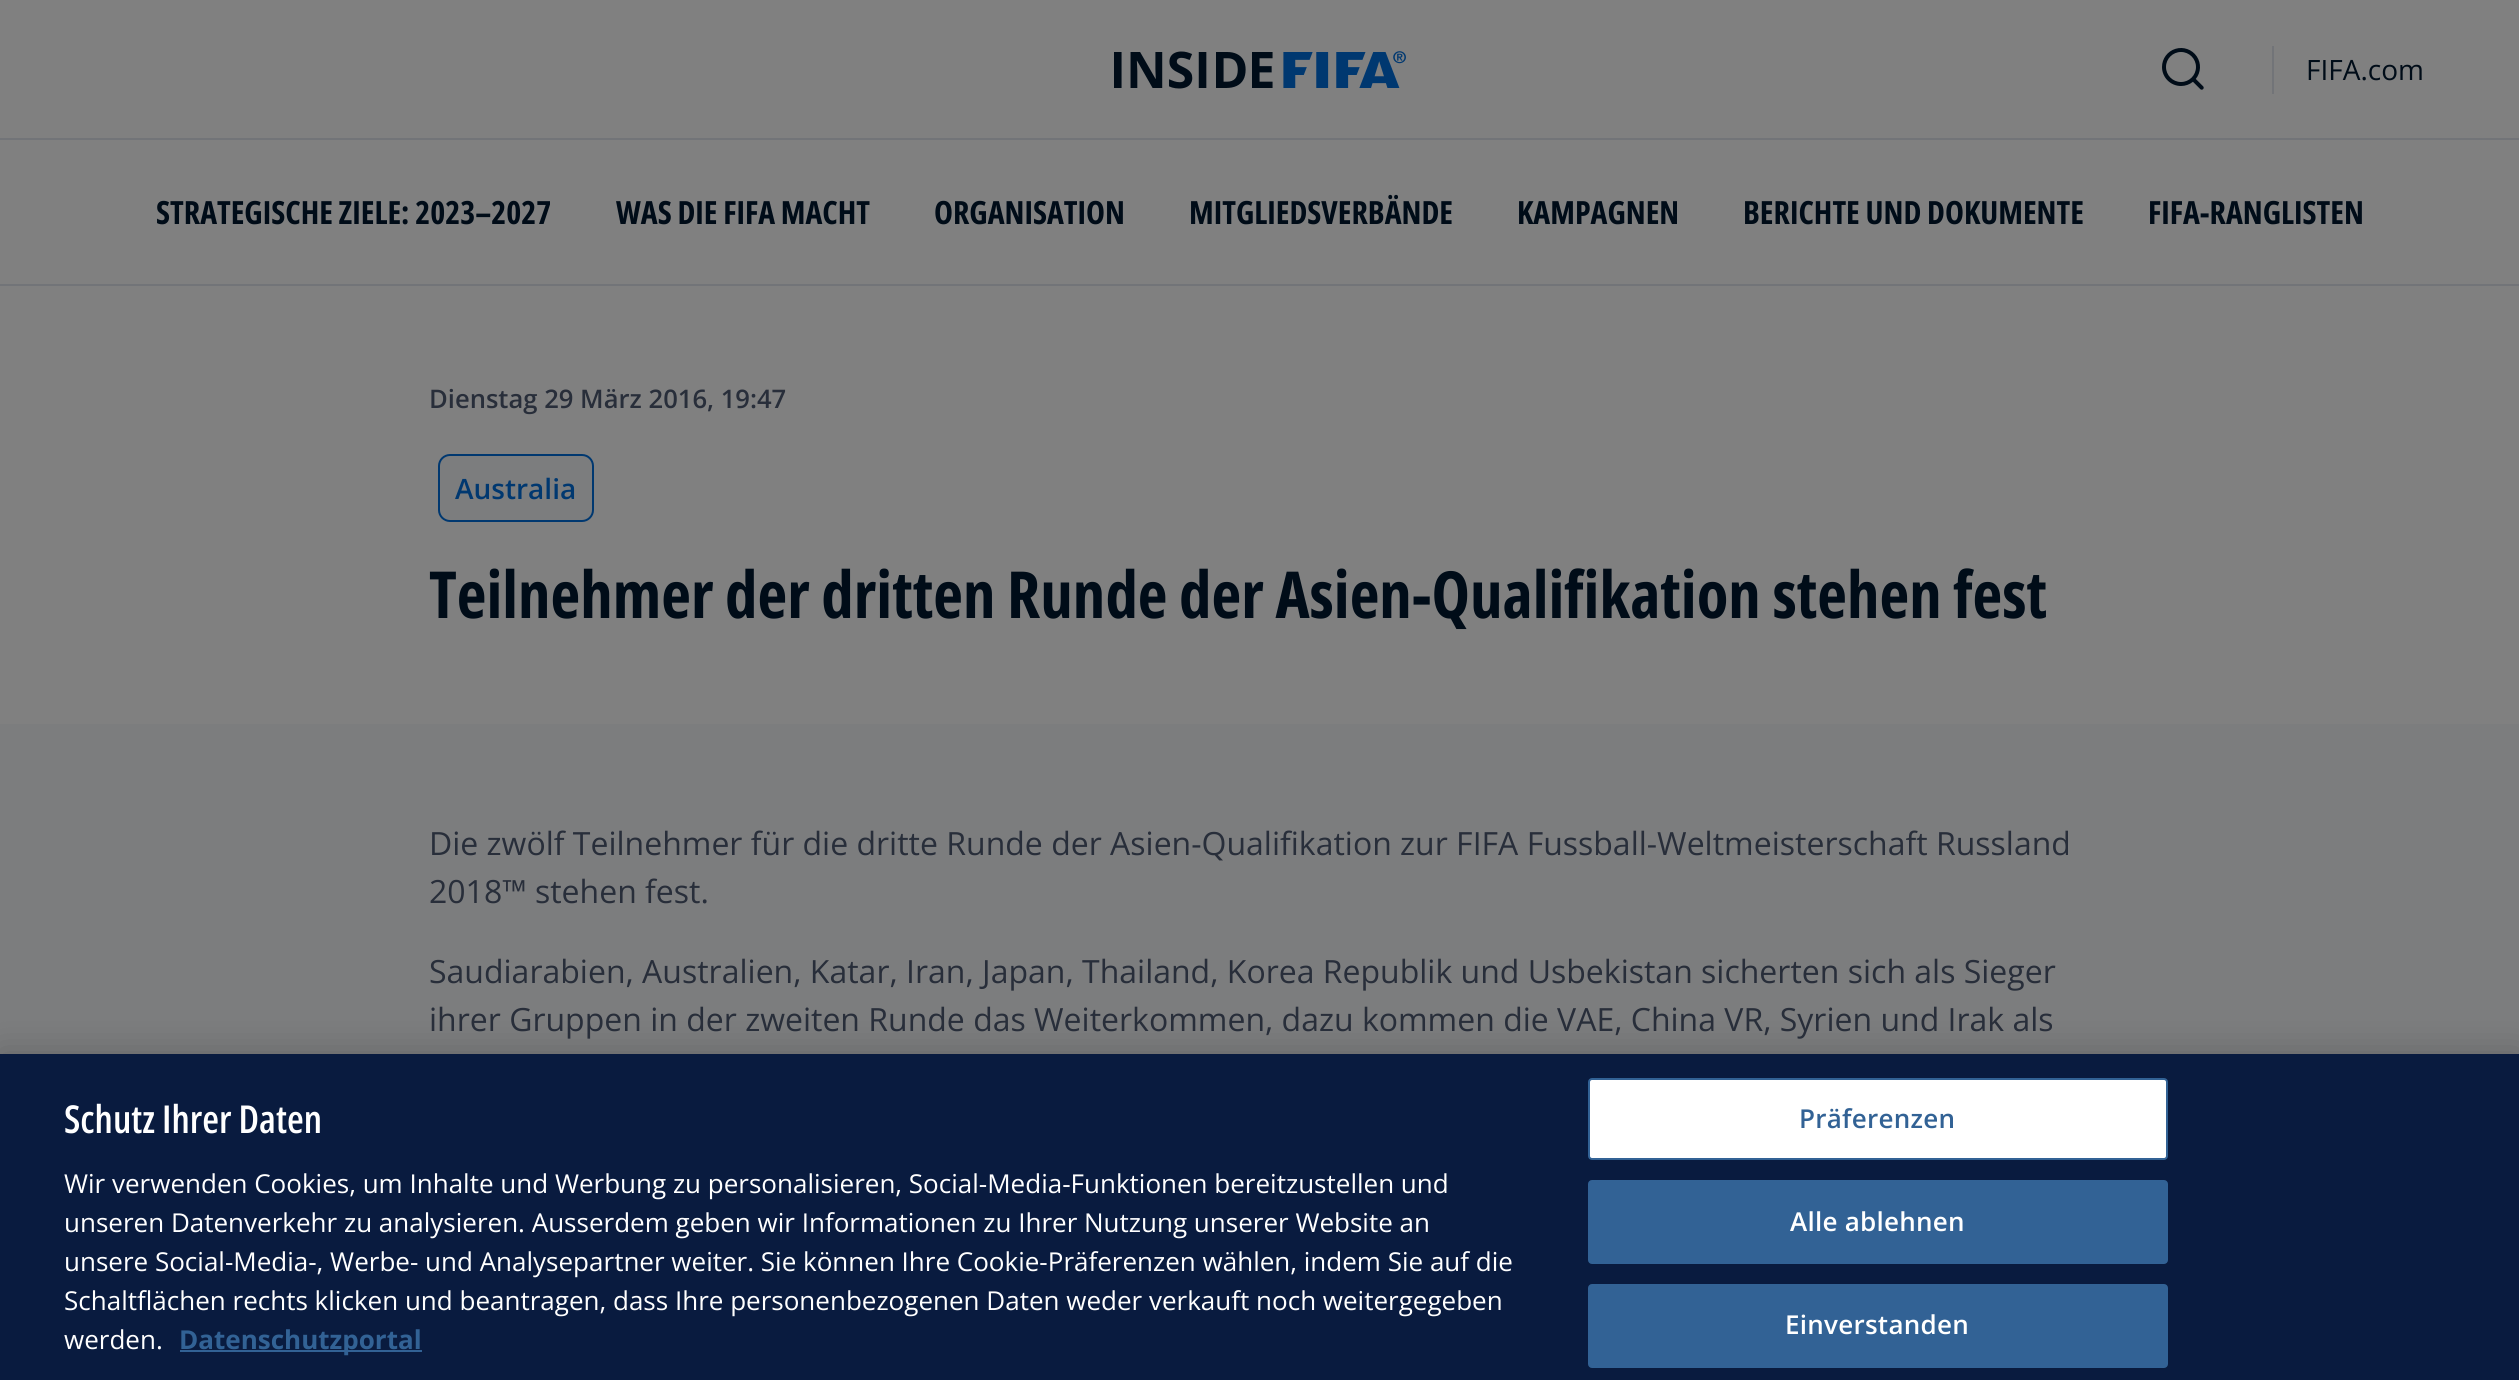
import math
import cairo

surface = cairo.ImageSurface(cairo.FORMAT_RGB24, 2519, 1380)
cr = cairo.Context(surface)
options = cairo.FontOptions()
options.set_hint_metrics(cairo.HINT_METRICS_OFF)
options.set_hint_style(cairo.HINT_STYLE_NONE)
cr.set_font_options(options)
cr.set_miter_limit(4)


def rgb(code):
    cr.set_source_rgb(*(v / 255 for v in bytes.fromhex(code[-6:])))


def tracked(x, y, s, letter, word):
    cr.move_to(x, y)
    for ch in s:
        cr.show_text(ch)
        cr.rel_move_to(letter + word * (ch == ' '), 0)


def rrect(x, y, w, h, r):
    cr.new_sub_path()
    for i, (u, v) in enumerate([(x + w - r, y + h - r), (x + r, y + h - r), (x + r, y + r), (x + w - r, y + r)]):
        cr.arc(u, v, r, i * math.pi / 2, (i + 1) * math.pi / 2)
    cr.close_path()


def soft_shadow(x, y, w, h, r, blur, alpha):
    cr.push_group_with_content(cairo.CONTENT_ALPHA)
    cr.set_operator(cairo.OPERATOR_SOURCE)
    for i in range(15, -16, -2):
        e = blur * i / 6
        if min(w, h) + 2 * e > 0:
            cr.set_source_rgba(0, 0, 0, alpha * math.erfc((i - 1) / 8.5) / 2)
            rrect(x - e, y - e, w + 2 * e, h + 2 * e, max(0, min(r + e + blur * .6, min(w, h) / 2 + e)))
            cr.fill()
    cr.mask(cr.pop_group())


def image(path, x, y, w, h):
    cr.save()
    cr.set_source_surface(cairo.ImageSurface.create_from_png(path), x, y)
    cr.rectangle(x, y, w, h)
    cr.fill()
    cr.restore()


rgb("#808080")
cr.paint()
rgb("#727478")
cr.rectangle(0, 138, 2519, 2)
cr.fill()
image("img/1.png", 1114, 51, 292, 38)
cr.rectangle(2272, 46, 2, 48)
cr.fill()
image("img/2.png", 2162, 48, 42, 42)
cr.rectangle(0, 284, 2519, 2)
cr.fill()
rgb("#7c7d7e")
rrect(439, 455, 154, 66, 11)
cr.fill_preserve()
rgb("#003870")
cr.stroke()
rgb("#7c7d7e")
cr.rectangle(0, 724, 2519, 330)
cr.fill()
rgb("#000000")
soft_shadow(0, 1054, 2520, 326, 0, 18, 0.2)
rgb("#091b3f")
cr.rectangle(0, 1054, 2519, 326)
cr.fill()
rgb("#326295")
cr.rectangle(180, 1350, 242, 2)
cr.fill()
rgb("#ffffff")
rrect(1589, 1079, 578, 80, 3)
cr.fill_preserve()
rgb("#326295")
cr.stroke()
rrect(1589, 1181, 578, 82, 3)
cr.fill_preserve()
cr.stroke()
rrect(1589, 1285, 578, 82, 3)
cr.fill_preserve()
cr.stroke()
cr.select_font_face("Open Sans")
cr.set_font_size(28)
rgb("#000c18")
cr.move_to(2306, 80)
cr.show_text("FIFA.com")
cr.select_font_face("Open Sans", cairo.FONT_SLANT_NORMAL, cairo.FONT_WEIGHT_BOLD)
cr.set_font_size(32)
for x, y, s in [
    (156, 224, "STRATEGISCHE ZIELE: 2023–2027"),
    (616, 224, "WAS DIE FIFA MACHT"),
    (934, 224, "ORGANISATION"),
    (1189, 224, "MITGLIEDSVERBÄNDE"),
    (1517, 224, "KAMPAGNEN"),
    (1743, 224, "BERICHTE UND DOKUMENTE"),
    (2148, 224, "FIFA-RANGLISTEN"),
]:
    cr.move_to(x, y)
    cr.show_text(s)
cr.select_font_face("Open Sans SemiBold")
cr.set_font_size(25.6)
rgb("#282e3a")
cr.move_to(429, 408)
cr.show_text("Dienstag 29 März 2016, 19:47")
cr.set_font_size(28)
rgb("#003870")
cr.move_to(455, 499)
cr.show_text("Australia")
cr.select_font_face("Open Sans", cairo.FONT_SLANT_NORMAL, cairo.FONT_WEIGHT_BOLD)
cr.set_font_size(64.9)
rgb("#000c18")
cr.move_to(429, 618)
cr.show_text("Teilnehmer der dritten Runde der Asien-Qualifikation stehen fest")
cr.select_font_face("Open Sans")
cr.set_font_size(32)
rgb("#282e3a")
for x, y, s in [
    (429, 855, "Die zwölf Teilnehmer für die dritte Runde der Asien-Qualifikation zur FIFA Fussball-Weltmeisterschaft Russland"),
    (429, 903, "2018™ stehen fest."),
    (429, 983, "Saudiarabien, Australien, Katar, Iran, Japan, Thailand, Korea Republik und Usbekistan sicherten sich als Sieger"),
    (429, 1031, "ihrer Gruppen in der zweiten Runde das Weiterkommen, dazu kommen die VAE, China VR, Syrien und Irak als"),
]:
    cr.move_to(x, y)
    cr.show_text(s)
cr.select_font_face("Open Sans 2 SemiBold")
cr.set_font_size(38.5)
rgb("#ffffff")
cr.move_to(64, 1133)
cr.show_text("Schutz Ihrer Daten")
cr.select_font_face("Open Sans")
cr.set_font_size(26.02)
for x, y, s in [
    (64, 1193, "Wir verwenden Cookies, um Inhalte und Werbung zu personalisieren, Social-Media-Funktionen bereitzustellen und"),
    (64, 1232, "unseren Datenverkehr zu analysieren. Ausserdem geben wir Informationen zu Ihrer Nutzung unserer Website an"),
    (64, 1271, "unsere Social-Media-, Werbe- und Analysepartner weiter. Sie können Ihre Cookie-Präferenzen wählen, indem Sie auf die"),
    (64, 1310, "Schaltflächen rechts klicken und beantragen, dass Ihre personenbezogenen Daten weder verkauft noch weitergegeben"),
    (64, 1349, "werden."),
]:
    cr.move_to(x, y)
    cr.show_text(s)
cr.select_font_face("Open Sans 2", cairo.FONT_SLANT_NORMAL, cairo.FONT_WEIGHT_BOLD)
rgb("#326295")
cr.move_to(179, 1349)
cr.show_text("Datenschutzportal")
cr.select_font_face("Open Sans SemiBold")
tracked(1799, 1128, "Präferenzen", 0.25, 0)
rgb("#ffffff")
tracked(1790, 1231, "Alle ablehnen", 0.25, 0)
tracked(1785, 1334, "Einverstanden", 0.25, 0)
surface.write_to_png("page.png")
